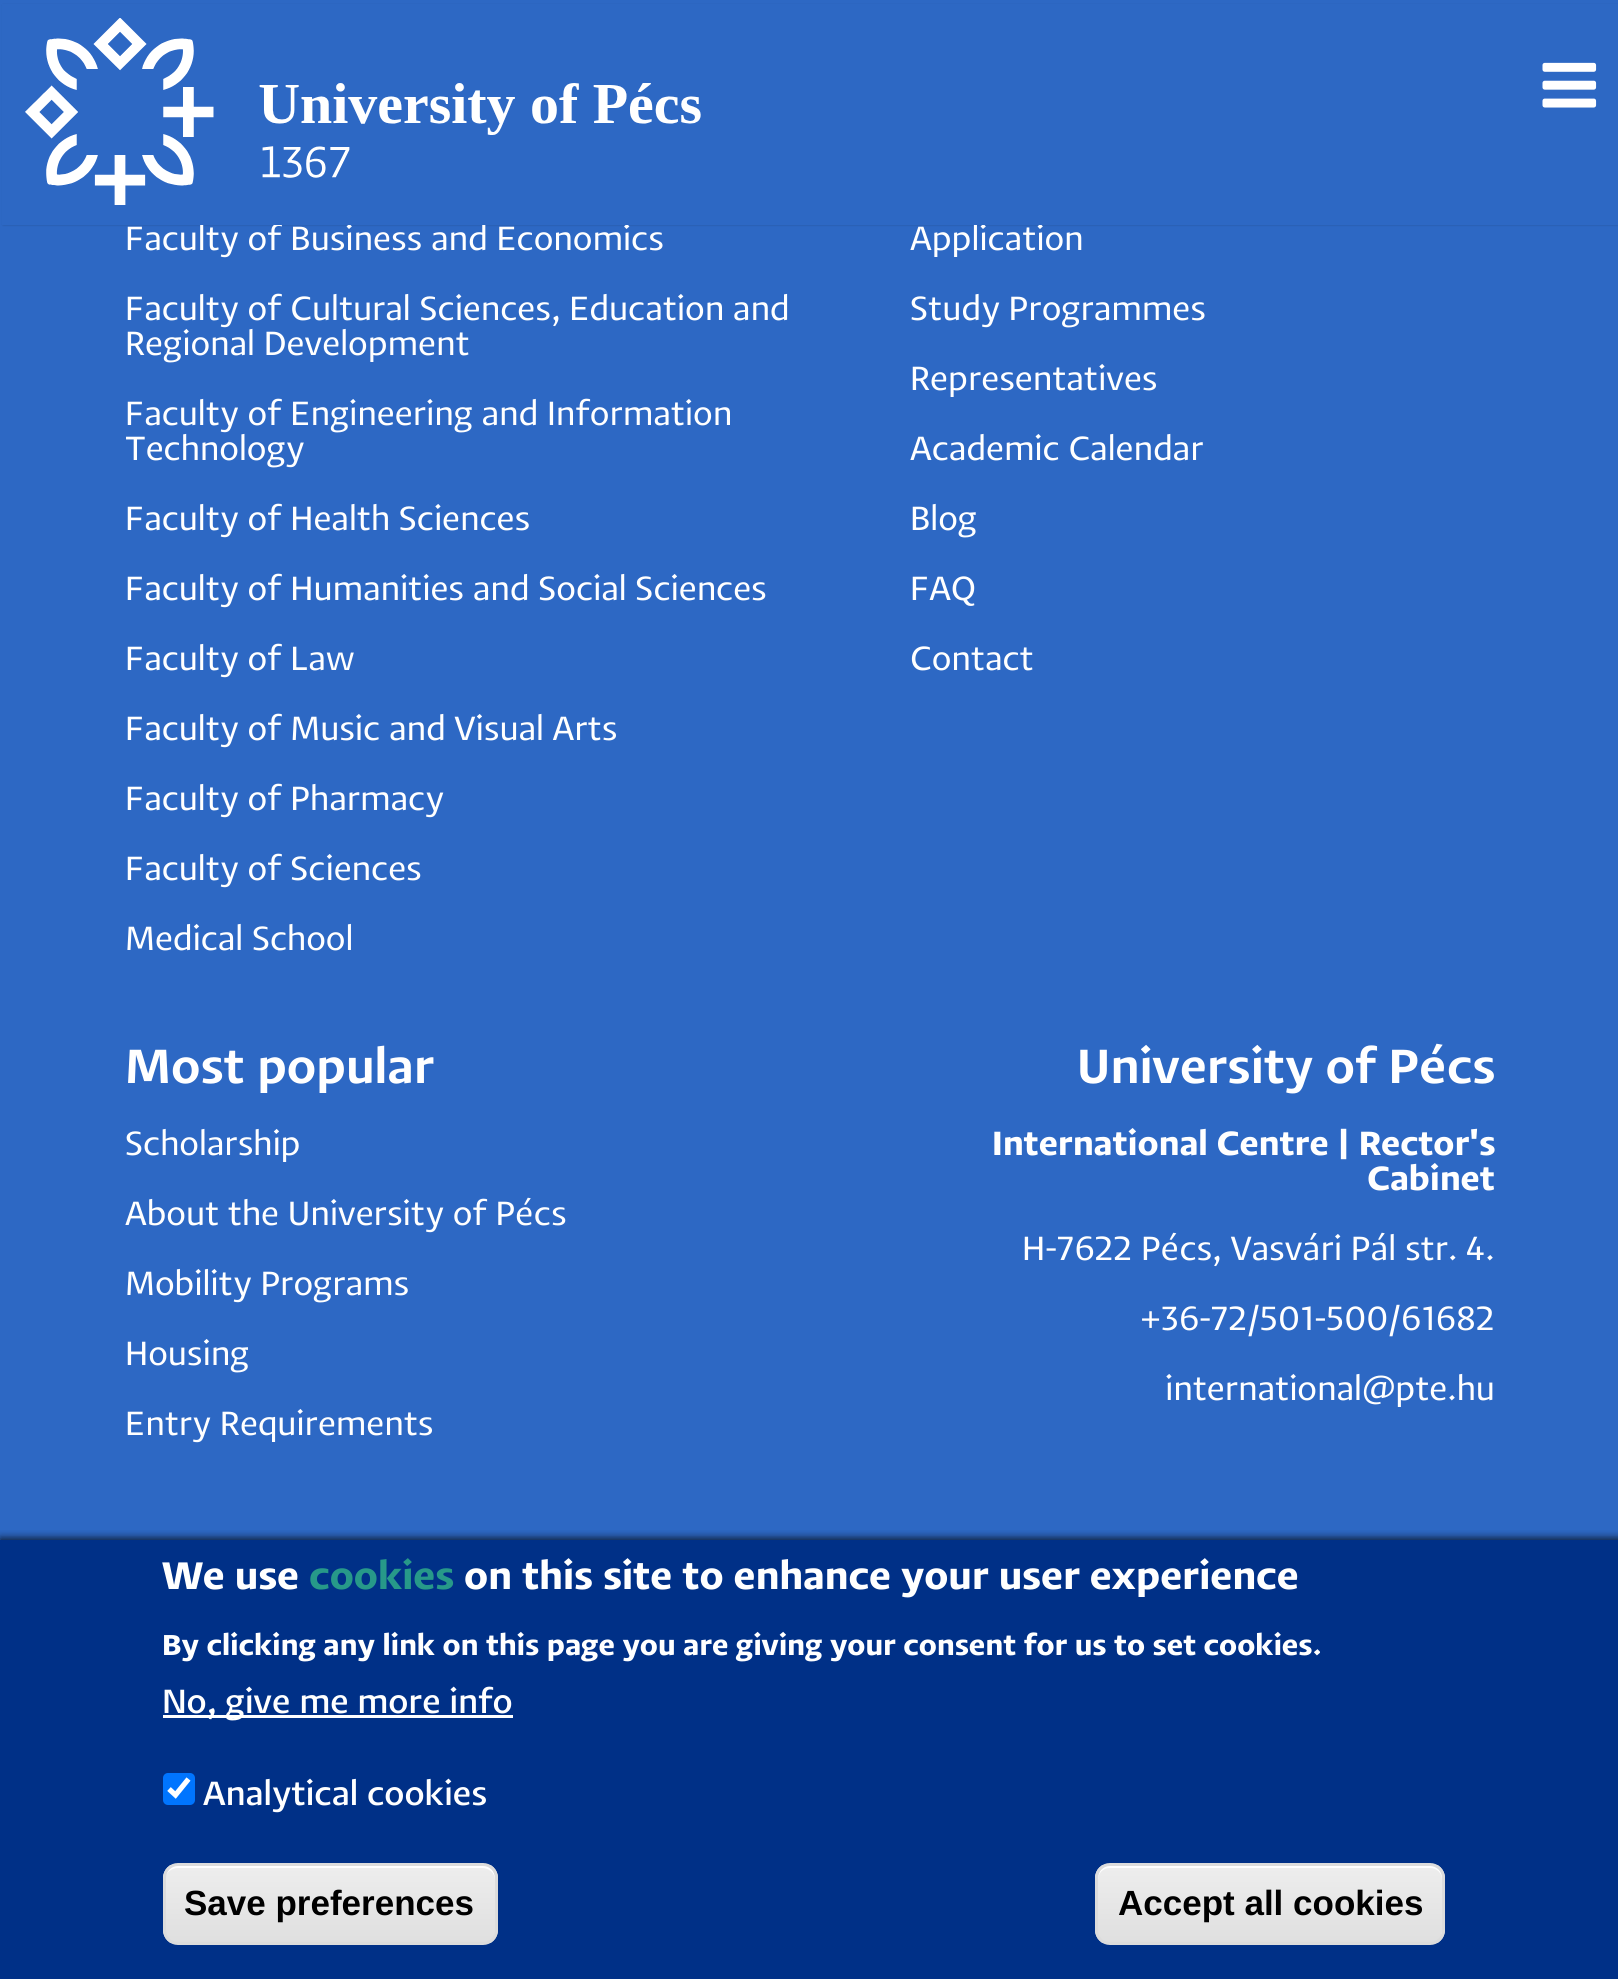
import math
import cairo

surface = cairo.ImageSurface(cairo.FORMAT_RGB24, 1618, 1979)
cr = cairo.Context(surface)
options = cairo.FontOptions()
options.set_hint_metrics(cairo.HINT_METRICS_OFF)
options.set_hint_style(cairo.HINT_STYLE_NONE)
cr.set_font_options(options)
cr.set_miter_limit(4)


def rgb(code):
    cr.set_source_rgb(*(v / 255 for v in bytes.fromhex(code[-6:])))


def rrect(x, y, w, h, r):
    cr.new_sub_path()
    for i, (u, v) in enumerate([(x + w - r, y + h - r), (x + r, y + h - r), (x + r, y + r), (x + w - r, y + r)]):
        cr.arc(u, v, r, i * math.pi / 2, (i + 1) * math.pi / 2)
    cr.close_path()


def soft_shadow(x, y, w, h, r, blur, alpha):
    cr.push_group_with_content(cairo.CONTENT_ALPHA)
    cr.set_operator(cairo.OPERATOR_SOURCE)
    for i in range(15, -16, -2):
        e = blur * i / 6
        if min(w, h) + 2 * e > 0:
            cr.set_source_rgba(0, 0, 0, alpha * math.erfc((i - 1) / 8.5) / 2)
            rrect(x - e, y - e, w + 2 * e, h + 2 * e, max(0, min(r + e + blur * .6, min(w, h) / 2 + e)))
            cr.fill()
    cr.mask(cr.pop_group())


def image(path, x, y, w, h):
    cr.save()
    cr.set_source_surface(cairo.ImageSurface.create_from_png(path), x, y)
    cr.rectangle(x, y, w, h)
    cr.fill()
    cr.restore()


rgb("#2d68c4")
cr.paint()
rgb("#000000")
soft_shadow(3, 5, 1615, 220, 0, 1, 0.2)
rgb("#003087")
cr.rectangle(0, 1540, 1618, 439)
cr.fill()
cr.save()
cr.rectangle(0, 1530, 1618, 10)
cr.clip()
rgb("#000000")
soft_shadow(0, 1538, 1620, 440, 0, 4, 0.75)
cr.restore()
rgb("#ffffff")
cr.rectangle(163, 1715, 350, 3)
cr.fill()
rgb("#0075ff")
rrect(163, 1773, 32, 32, 5)
cr.fill()
cr.new_path()
cr.move_to(169, 1789)
cr.line_to(175.5, 1795)
cr.line_to(188.5, 1779)
rgb("#ffffff")
cr.set_line_width(5.2)
cr.stroke()
cr.save()
rrect(163, 1863, 335, 82, 15)
cr.clip()
gradient = cairo.LinearGradient(330, 1865, 330, 1943)
gradient.add_color_stop_rgba(0.05, 0.929, 0.929, 0.929, 1)
gradient.add_color_stop_rgba(1, 0.875, 0.875, 0.875, 1)
cr.set_source(gradient)
cr.rectangle(163, 1865, 335, 78)
cr.fill()
cr.restore()
cr.new_path()
cr.move_to(178, 1868)
cr.line_to(482, 1868)
cr.curve_to(489, 1868, 495, 1873, 495, 1880)
cr.line_to(495, 1878)
cr.curve_to(495, 1871, 489, 1865, 482, 1865)
cr.line_to(178, 1865)
cr.curve_to(171, 1865, 165, 1871, 165, 1878)
cr.line_to(165, 1880)
cr.curve_to(165, 1873, 171, 1868, 178, 1868)
cr.close_path()
cr.fill()
rrect(164.5, 1864.5, 332, 79, 13.5)
rgb("#dcdcdc")
cr.set_line_width(3)
cr.stroke()
cr.save()
rrect(1095, 1863, 350, 82, 15)
cr.clip()
gradient = cairo.LinearGradient(1270, 1865, 1270, 1943)
gradient.add_color_stop_rgba(0.05, 0.929, 0.929, 0.929, 1)
gradient.add_color_stop_rgba(1, 0.875, 0.875, 0.875, 1)
cr.set_source(gradient)
cr.rectangle(1095, 1865, 350, 78)
cr.fill()
cr.restore()
rgb("#ffffff")
cr.new_path()
cr.move_to(1110, 1868)
cr.line_to(1430, 1868)
cr.curve_to(1437, 1868, 1442, 1873, 1442, 1880)
cr.line_to(1442, 1932)
cr.line_to(1441, 1936)
cr.curve_to(1442, 1935, 1443, 1932, 1443, 1930)
cr.line_to(1443, 1878)
cr.curve_to(1443, 1871, 1437, 1865, 1430, 1865)
cr.line_to(1111, 1865)
cr.curve_to(1104, 1865, 1098, 1871, 1098, 1878)
cr.line_to(1098, 1880)
cr.curve_to(1098, 1873, 1103, 1868, 1110, 1868)
cr.close_path()
cr.fill()
rrect(1096.5, 1864.5, 347, 79, 13.5)
rgb("#dcdcdc")
cr.stroke()
cr.select_font_face("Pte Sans")
cr.set_font_size(35)
rgb("#ffffff")
for x, y, s in [
    (125, 250, "Faculty of Business and Economics"),
    (125, 320, "Faculty of Cultural Sciences, Education and"),
    (125, 355, "Regional Development"),
    (125, 425, "Faculty of Engineering and Information"),
    (125, 460, "Technology"),
    (125, 530, "Faculty of Health Sciences"),
    (125, 600, "Faculty of Humanities and Social Sciences"),
    (125, 670, "Faculty of Law"),
    (125, 740, "Faculty of Music and Visual Arts"),
    (125, 810, "Faculty of Pharmacy"),
    (125, 880, "Faculty of Sciences"),
    (125, 950, "Medical School"),
    (910, 250, "Application"),
]:
    cr.move_to(x, y)
    cr.show_text(s)
rgb("#2d68c4")
cr.rectangle(2, 4, 1616, 221)
cr.fill()
image("img/2.png", 1542, 62, 55, 46)
image("img/1.png", 25, 18, 676, 187)
rgb("#ffffff")
for x, y, s in [
    (910, 320, "Study Programmes"),
    (910, 390, "Representatives"),
    (910, 460, "Academic Calendar"),
    (910, 530, "Blog"),
    (910, 600, "FAQ"),
    (910, 670, "Contact"),
]:
    cr.move_to(x, y)
    cr.show_text(s)
cr.select_font_face("Pte Sans SemiBold")
cr.set_font_size(50)
cr.move_to(125, 1083)
cr.show_text("Most popular")
cr.select_font_face("Pte Sans")
cr.set_font_size(35)
for x, y, s in [
    (125, 1155, "Scholarship"),
    (125, 1225, "About the University of Pécs"),
    (125, 1295, "Mobility Programs"),
    (125, 1365, "Housing"),
    (125, 1435, "Entry Requirements"),
]:
    cr.move_to(x, y)
    cr.show_text(s)
cr.select_font_face("Pte Sans SemiBold")
cr.set_font_size(50)
cr.move_to(1077, 1083)
cr.show_text("University of Pécs")
cr.select_font_face("Pte Sans", cairo.FONT_SLANT_NORMAL, cairo.FONT_WEIGHT_BOLD)
cr.set_font_size(35)
cr.move_to(992, 1155)
cr.show_text("International Centre | Rector's")
cr.move_to(1367, 1190)
cr.show_text("Cabinet")
cr.select_font_face("Pte Sans")
for x, y, s in [
    (1022, 1260, "H-7622 Pécs, Vasvári Pál str. 4."),
    (1140, 1330, "+36-72/501-500/61682"),
    (1165, 1400, "international@pte.hu"),
]:
    cr.move_to(x, y)
    cr.show_text(s)
cr.select_font_face("Pte Sans", cairo.FONT_SLANT_NORMAL, cairo.FONT_WEIGHT_BOLD)
cr.set_font_size(40)
cr.move_to(162, 1589)
cr.show_text("We use")
rgb("#279989")
cr.move_to(309, 1589)
cr.show_text("cookies")
rgb("#ffffff")
cr.move_to(464, 1589)
cr.show_text("on this site to enhance your user experience")
cr.set_font_size(30)
cr.move_to(162, 1655)
cr.show_text("By clicking any link on this page you are giving your consent for us to set cookies.")
cr.select_font_face("Pte Sans Medium")
cr.set_font_size(35)
cr.move_to(162, 1713)
cr.show_text("No, give me more info")
cr.move_to(203, 1805)
cr.show_text("Analytical cookies")
cr.select_font_face("Liberation Sans", cairo.FONT_SLANT_NORMAL, cairo.FONT_WEIGHT_BOLD)
rgb("#000000")
cr.move_to(184, 1915)
cr.show_text("Save preferences")
cr.move_to(1118, 1915)
cr.show_text("Accept all cookies")
surface.write_to_png("page.png")
